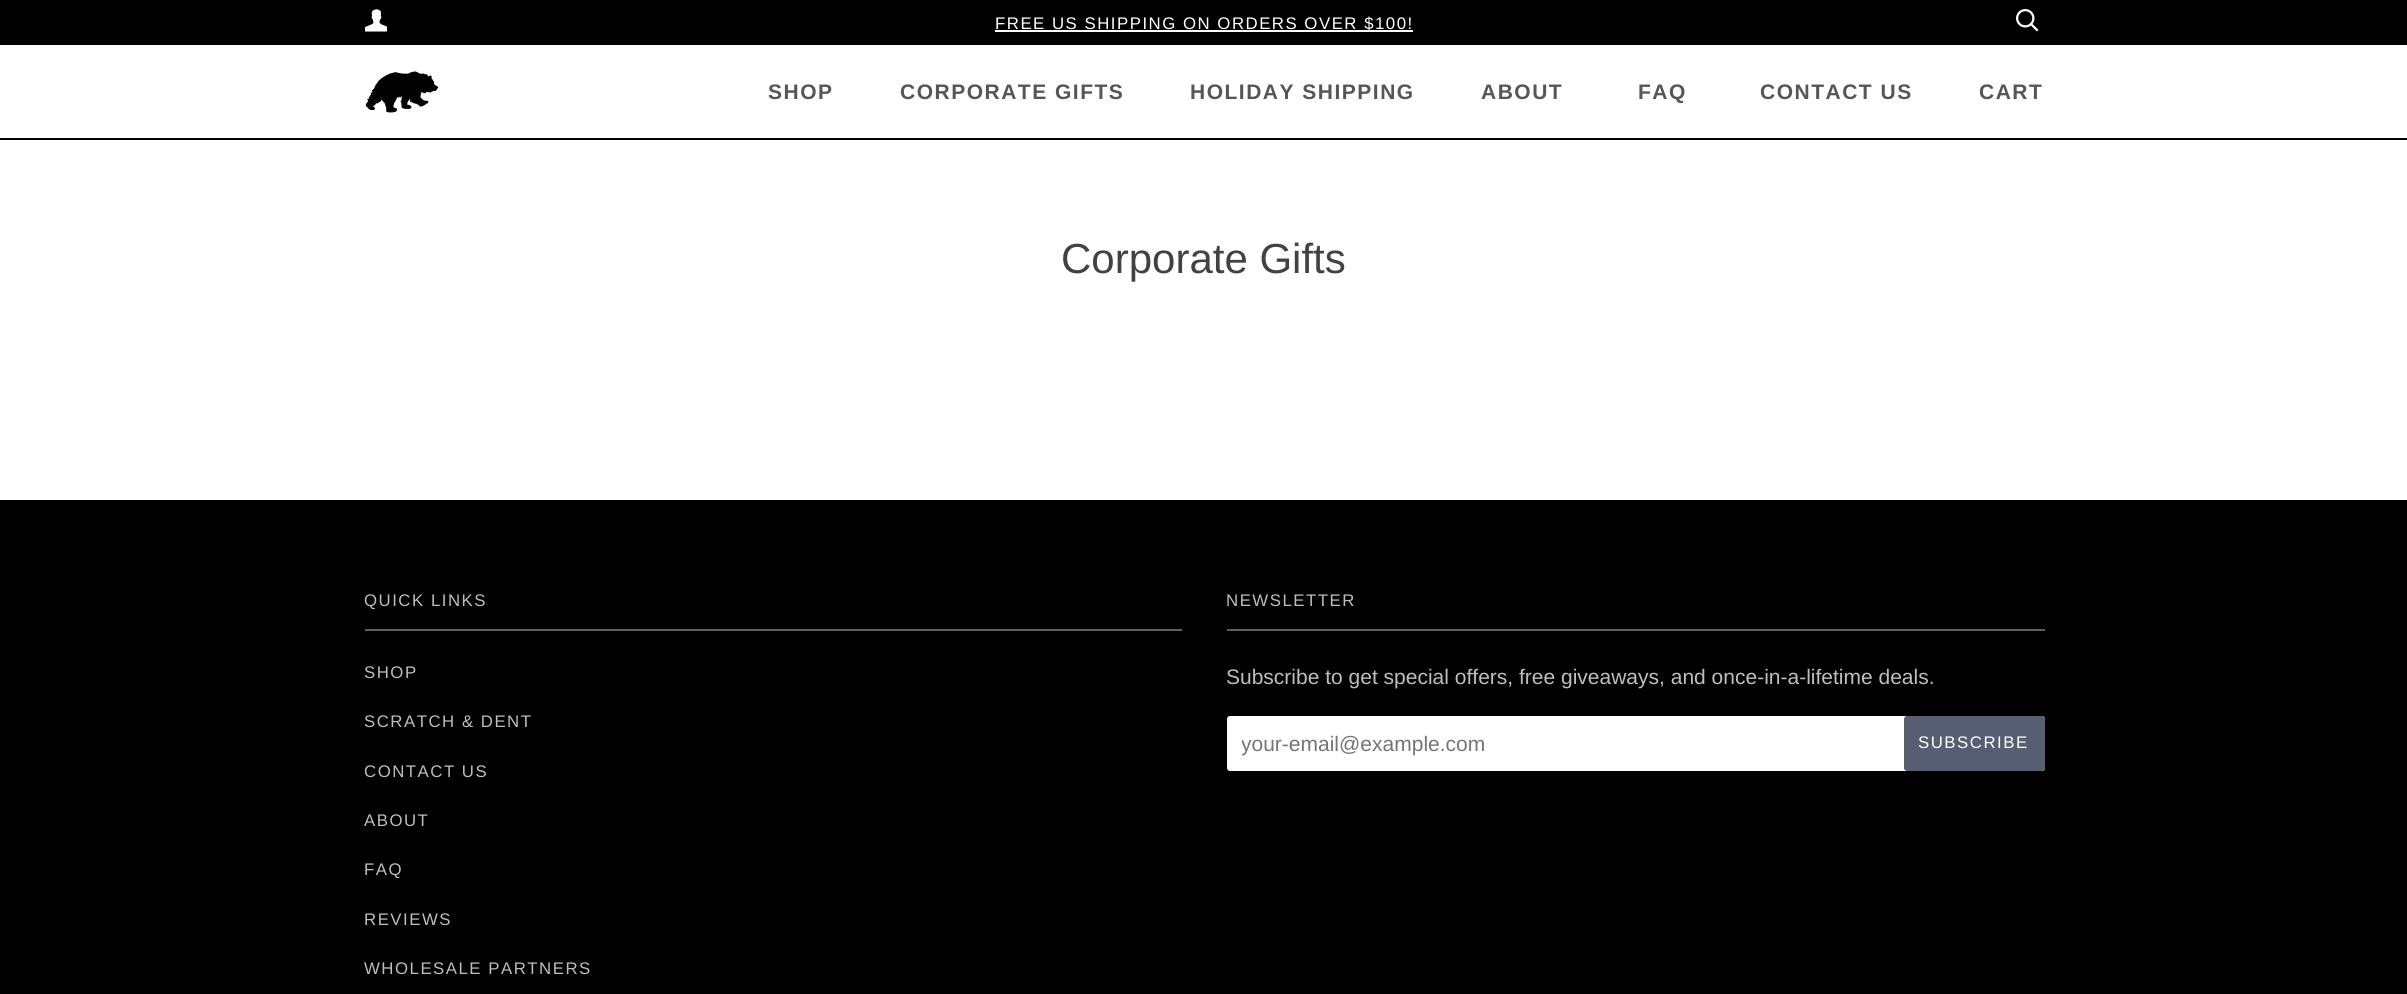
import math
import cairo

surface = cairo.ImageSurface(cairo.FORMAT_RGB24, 2407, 994)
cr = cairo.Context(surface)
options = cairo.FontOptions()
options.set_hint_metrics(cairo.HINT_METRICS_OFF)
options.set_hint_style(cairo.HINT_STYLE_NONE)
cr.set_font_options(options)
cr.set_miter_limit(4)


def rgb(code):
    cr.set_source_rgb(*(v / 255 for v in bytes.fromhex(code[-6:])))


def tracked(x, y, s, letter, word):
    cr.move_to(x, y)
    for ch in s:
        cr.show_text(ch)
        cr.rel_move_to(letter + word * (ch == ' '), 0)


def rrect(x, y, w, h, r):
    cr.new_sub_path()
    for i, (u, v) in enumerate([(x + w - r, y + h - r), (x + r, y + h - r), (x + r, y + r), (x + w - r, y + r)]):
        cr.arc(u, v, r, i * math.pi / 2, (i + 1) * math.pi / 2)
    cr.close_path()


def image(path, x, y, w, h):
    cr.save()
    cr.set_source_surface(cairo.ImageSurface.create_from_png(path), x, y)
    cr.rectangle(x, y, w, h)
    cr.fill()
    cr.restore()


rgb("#ffffff")
cr.paint()
rgb("#000000")
cr.rectangle(0, 0, 2407, 45)
cr.fill()
image("img/1.png", 365, 9, 22, 23)
rgb("#ffffff")
cr.rectangle(995, 30, 418, 2)
cr.fill()
image("img/2.png", 2016, 9, 23, 23)
rgb("#000000")
cr.rectangle(0, 138, 2407, 2)
cr.fill()
image("img/3.png", 365, 71, 74, 42)
for x, y, w, h, color in [
    (0, 500, 2407, 494, "#000000"),
    (365, 629, 817, 2, "#5f5f5f"),
    (1227, 629, 818, 2, "#5f5f5f"),
]:
    rgb(color)
    cr.rectangle(x, y, w, h)
    cr.fill()
rgb("#ffffff")
rrect(1227, 716, 818, 55, 3)
cr.fill()
rgb("#585e71")
rrect(1904, 716, 141, 55, 3)
cr.fill()
cr.select_font_face("Liberation Sans")
cr.set_font_size(16.8)
rgb("#ffffff")
tracked(995, 29, "FREE US SHIPPING ON ORDERS OVER $100!", 1.5, 0)
cr.select_font_face("Liberation Sans", cairo.FONT_SLANT_NORMAL, cairo.FONT_WEIGHT_BOLD)
cr.set_font_size(21)
rgb("#565656")
for x, y, s in [
    (768, 99, "SHOP"),
    (900, 99, "CORPORATE GIFTS"),
    (1190, 99, "HOLIDAY SHIPPING"),
    (1481, 99, "ABOUT"),
    (1638, 99, "FAQ"),
    (1760, 99, "CONTACT US"),
    (1979, 99, "CART"),
]:
    tracked(x, y, s, 1.5, 0)
cr.select_font_face("Liberation Sans")
cr.set_font_size(42)
rgb("#424242")
cr.move_to(1061, 273)
cr.show_text("Corporate Gifts")
cr.set_font_size(16.8)
rgb("#bebebe")
for x, y, s in [
    (364, 606, "QUICK LINKS"),
    (364, 678, "SHOP"),
    (364, 727, "SCRATCH & DENT"),
    (364, 777, "CONTACT US"),
    (364, 826, "ABOUT"),
    (364, 875, "FAQ"),
    (364, 925, "REVIEWS"),
    (364, 974, "WHOLESALE PARTNERS"),
    (1226, 606, "NEWSLETTER"),
]:
    tracked(x, y, s, 1.5, 0)
cr.set_font_size(21)
cr.move_to(1226, 684)
cr.show_text("Subscribe to get special offers, free giveaways, and once-in-a-lifetime deals.")
cr.save()
cr.rectangle(1242, 732, 647, 24)
cr.clip()
rgb("#757575")
cr.move_to(1241, 751)
cr.show_text("your-email@example.com")
cr.restore()
cr.set_font_size(16.8)
rgb("#ffffff")
tracked(1918, 748, "SUBSCRIBE", 1.5, 0)
surface.write_to_png("page.png")
